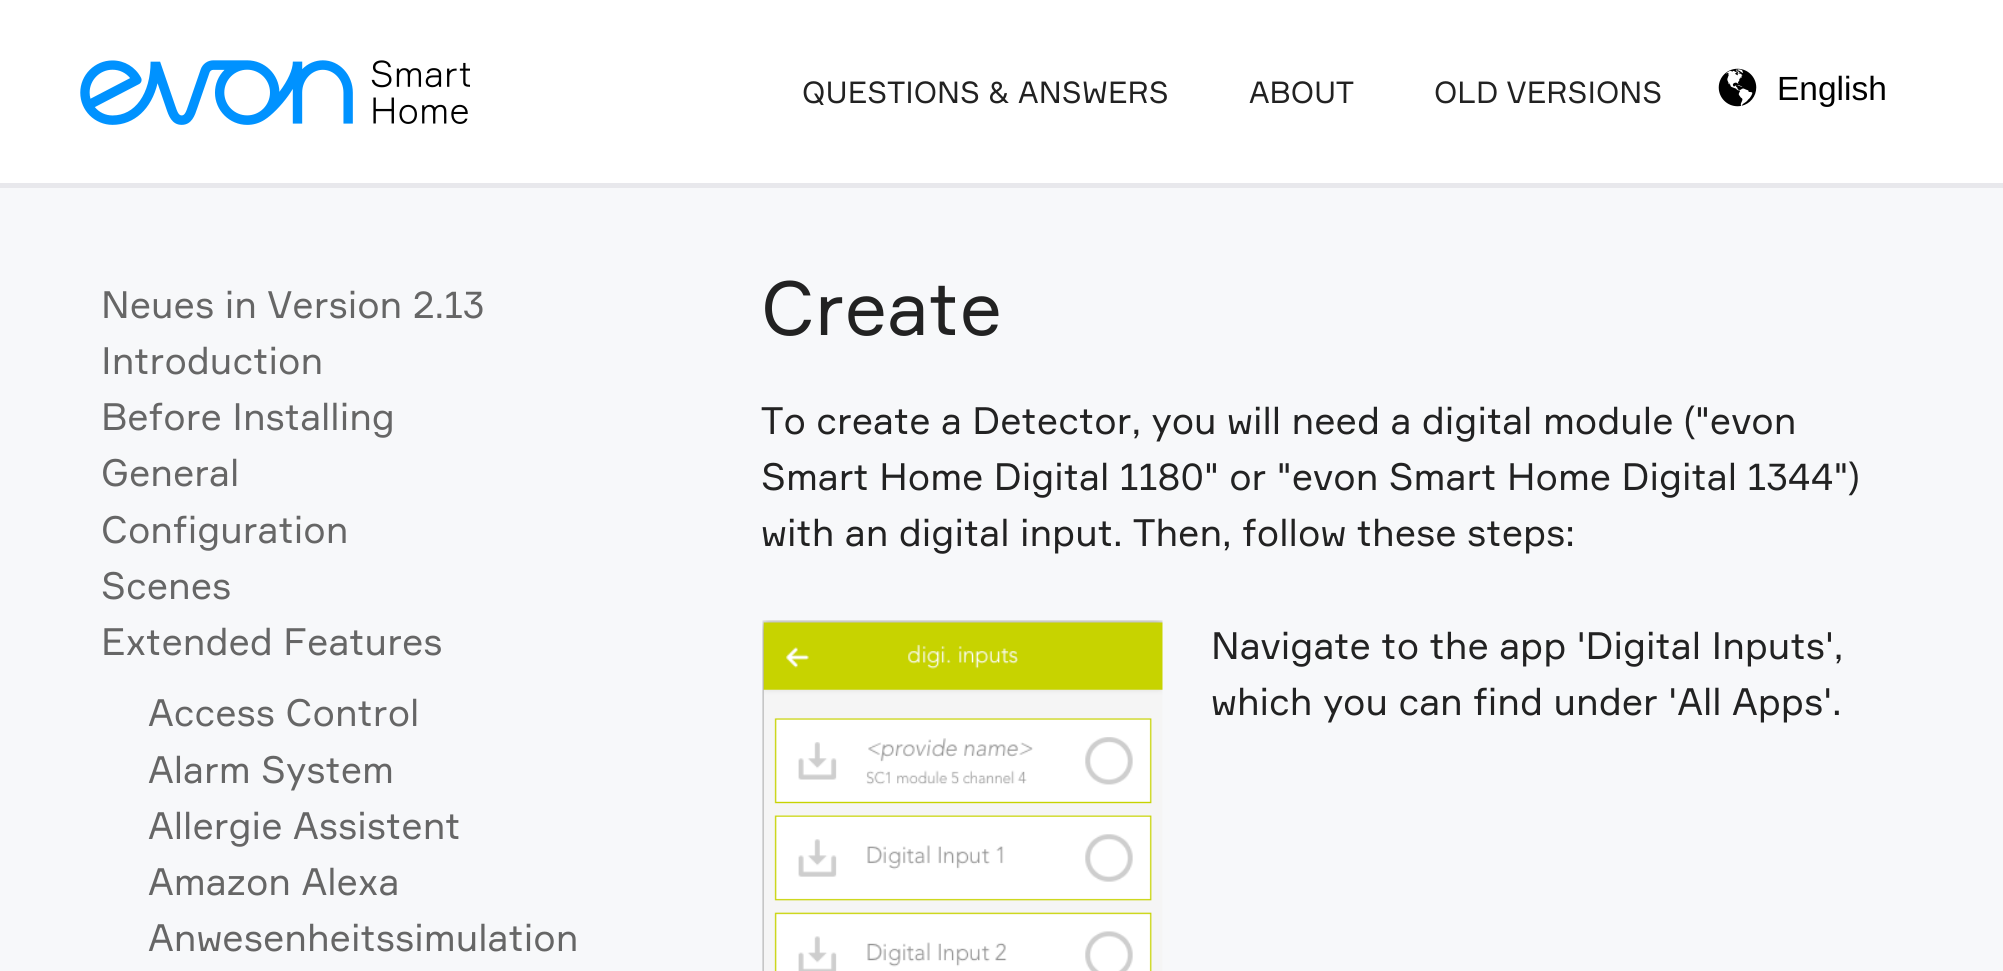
import math
import cairo

surface = cairo.ImageSurface(cairo.FORMAT_RGB24, 2003, 971)
cr = cairo.Context(surface)
options = cairo.FontOptions()
options.set_hint_metrics(cairo.HINT_METRICS_OFF)
options.set_hint_style(cairo.HINT_STYLE_NONE)
cr.set_font_options(options)
cr.set_miter_limit(4)


def rgb(code):
    cr.set_source_rgb(*(v / 255 for v in bytes.fromhex(code[-6:])))


def image(path, x, y, w, h):
    cr.save()
    cr.set_source_surface(cairo.ImageSurface.create_from_png(path), x, y)
    cr.rectangle(x, y, w, h)
    cr.fill()
    cr.restore()


rgb("#f7f8fa")
cr.paint()
rgb("#ffffff")
cr.rectangle(0, 0, 2003, 183)
cr.fill()
rgb("#e8e8ec")
cr.rectangle(0, 183, 2003, 5)
cr.fill()
image("img/1.png", 80, 60, 390, 65)
image("img/2.png", 1718, 68, 39, 39)
image("img/3.png", 762, 620, 401, 351)
cr.select_font_face("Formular")
cr.set_font_size(30)
rgb("#222222")
for x, y, s in [
    (802, 103, "QUESTIONS & ANSWERS"),
    (1249, 103, "ABOUT"),
    (1434, 103, "OLD VERSIONS"),
]:
    cr.move_to(x, y)
    cr.show_text(s)
cr.select_font_face("Liberation Sans")
cr.set_font_size(33.5)
rgb("#000000")
cr.move_to(1777, 100)
cr.show_text("English")
cr.select_font_face("Formular")
cr.set_font_size(37.5)
rgb("#666666")
for x, y, s in [
    (101, 318, "Neues in Version 2.13"),
    (101, 374, "Introduction"),
    (101, 430, "Before Installing"),
    (101, 486, "General"),
    (101, 543, "Configuration"),
    (101, 599, "Scenes"),
    (101, 655, "Extended Features"),
    (148, 726, "Access Control"),
    (148, 783, "Alarm System"),
    (148, 839, "Allergie Assistent"),
    (148, 895, "Amazon Alexa"),
    (148, 951, "Anwesenheitssimulation"),
]:
    cr.move_to(x, y)
    cr.show_text(s)
cr.set_font_size(75)
rgb("#222222")
cr.move_to(761, 335)
cr.show_text("Create")
cr.set_font_size(37.5)
for x, y, s in [
    (761, 434, "To create a Detector, you will need a digital module (\"evon"),
    (761, 490, "Smart Home Digital 1180\" or \"evon Smart Home Digital 1344\")"),
    (761, 546, "with an digital input. Then, follow these steps:"),
    (1211, 659, "Navigate to the app 'Digital Inputs',"),
    (1211, 715, "which you can find under 'All Apps'."),
]:
    cr.move_to(x, y)
    cr.show_text(s)
surface.write_to_png("page.png")
